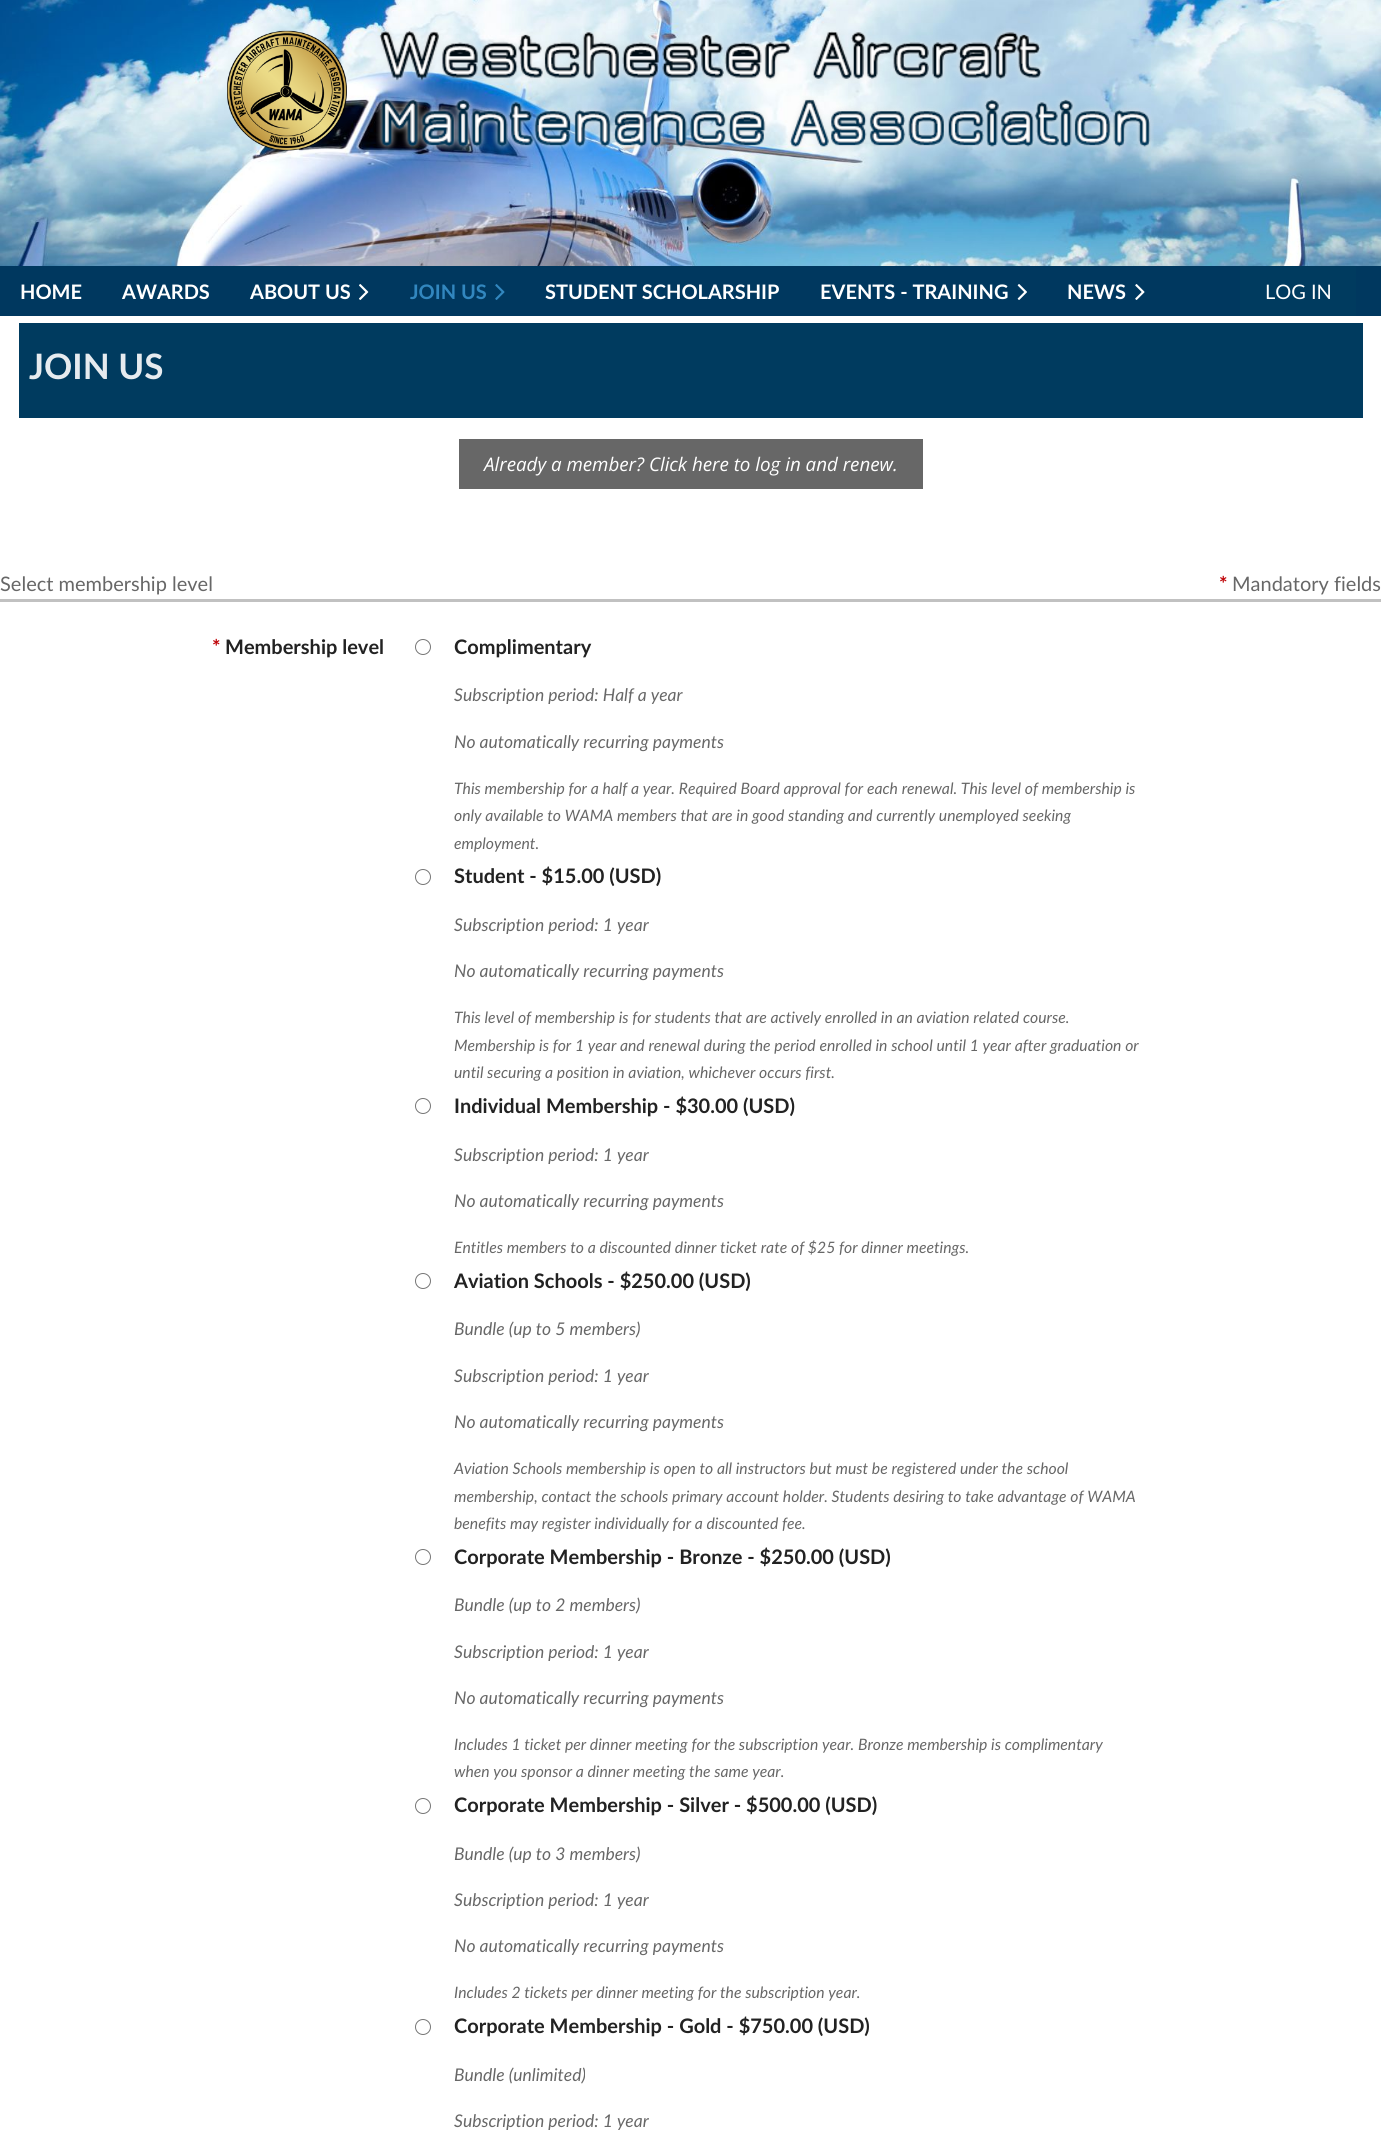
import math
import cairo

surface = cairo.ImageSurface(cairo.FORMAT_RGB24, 1381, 2152)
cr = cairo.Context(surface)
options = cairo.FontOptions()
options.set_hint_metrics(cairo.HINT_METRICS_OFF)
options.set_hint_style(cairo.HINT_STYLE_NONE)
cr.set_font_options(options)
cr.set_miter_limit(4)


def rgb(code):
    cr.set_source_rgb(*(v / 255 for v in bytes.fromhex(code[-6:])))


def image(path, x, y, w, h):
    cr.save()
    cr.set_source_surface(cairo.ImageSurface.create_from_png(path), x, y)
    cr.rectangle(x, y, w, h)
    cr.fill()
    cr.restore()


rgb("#ffffff")
cr.paint()
image("img/1.png", 0, 0, 1381, 266)
image("img/2.png", 227, 30, 120, 121)
image("img/3.png", 376, 28, 778, 123)
rgb("#00385f")
cr.rectangle(0, 266, 1381, 50)
cr.fill()
image("img/4.png", 359, 284, 10, 16)
image("img/5.png", 495, 284, 10, 16)
image("img/6.png", 1017, 284, 10, 16)
image("img/7.png", 1135, 284, 10, 16)
for x, y, w, h, color in [
    (1240, 266, 116, 50, "#003b5f"),
    (19, 323, 1344, 95, "#003b5f"),
    (459, 439, 464, 50, "#676767"),
    (0, 599, 1381, 3, "#c1c1c1"),
]:
    rgb(color)
    cr.rectangle(x, y, w, h)
    cr.fill()
cr.arc(423, 647, 7.5, 0, 2 * math.pi)
rgb("#767676")
cr.set_line_width(1)
cr.stroke()
cr.arc(423, 877, 7.5, 0, 2 * math.pi)
cr.stroke()
cr.arc(423, 1106, 7.5, 0, 2 * math.pi)
cr.stroke()
cr.arc(423, 1281, 7.5, 0, 2 * math.pi)
cr.stroke()
cr.arc(423, 1557, 7.5, 0, 2 * math.pi)
cr.stroke()
cr.arc(423, 1806, 7.5, 0, 2 * math.pi)
cr.stroke()
cr.arc(423, 2027, 7.5, 0, 2 * math.pi)
cr.stroke()
cr.select_font_face("Lato", cairo.FONT_SLANT_NORMAL, cairo.FONT_WEIGHT_BOLD)
cr.set_font_size(20)
rgb("#ffffff")
for x, y, s in [
    (20, 299, "HOME"),
    (122, 299, "AWARDS"),
    (250, 299, "ABOUT US"),
]:
    cr.move_to(x, y)
    cr.show_text(s)
rgb("#3287bf")
cr.move_to(410, 299)
cr.show_text("JOIN US")
rgb("#ffffff")
for x, y, s in [
    (545, 299, "STUDENT SCHOLARSHIP"),
    (820, 299, "EVENTS - TRAINING"),
    (1067, 299, "NEWS"),
]:
    cr.move_to(x, y)
    cr.show_text(s)
cr.select_font_face("Lato")
cr.move_to(1265, 299)
cr.show_text("LOG IN")
cr.select_font_face("Lato", cairo.FONT_SLANT_NORMAL, cairo.FONT_WEIGHT_BOLD)
cr.set_font_size(35)
rgb("#e6ebef")
cr.move_to(29, 379)
cr.show_text("JOIN US")
cr.select_font_face("Open Sans", cairo.FONT_SLANT_ITALIC)
cr.set_font_size(18.75)
rgb("#ffffff")
cr.move_to(484, 471)
cr.show_text("Already a member? Click here to log in and renew.")
cr.select_font_face("Lato")
cr.set_font_size(20)
rgb("#676767")
cr.move_to(0, 591)
cr.show_text("Select membership level")
cr.select_font_face("Lato", cairo.FONT_SLANT_NORMAL, cairo.FONT_WEIGHT_BOLD)
rgb("#be0004")
cr.move_to(1219, 591)
cr.show_text("*")
cr.select_font_face("Lato")
rgb("#676767")
cr.move_to(1232, 591)
cr.show_text("Mandatory fields")
cr.select_font_face("Lato", cairo.FONT_SLANT_NORMAL, cairo.FONT_WEIGHT_BOLD)
rgb("#be0004")
cr.move_to(212, 654)
cr.show_text("*")
rgb("#222222")
cr.move_to(225, 654)
cr.show_text("Membership level")
cr.move_to(454, 654)
cr.show_text("Complimentary")
cr.select_font_face("Lato", cairo.FONT_SLANT_ITALIC)
cr.set_font_size(17.5)
rgb("#676767")
cr.move_to(454, 701)
cr.show_text("Subscription period: Half a year")
cr.move_to(454, 748)
cr.show_text("No automatically recurring payments")
cr.set_font_size(15.75)
for x, y, s in [
    (454, 794, "This membership for a half a year. Required Board approval for each renewal. This level of membership is"),
    (454, 821, "only available to WAMA members that are in good standing and currently unemployed seeking"),
    (454, 849, "employment."),
]:
    cr.move_to(x, y)
    cr.show_text(s)
cr.select_font_face("Lato", cairo.FONT_SLANT_NORMAL, cairo.FONT_WEIGHT_BOLD)
cr.set_font_size(20)
rgb("#222222")
cr.move_to(454, 883)
cr.show_text("Student - $15.00 (USD)")
cr.select_font_face("Lato", cairo.FONT_SLANT_ITALIC)
cr.set_font_size(17.5)
rgb("#676767")
cr.move_to(454, 931)
cr.show_text("Subscription period: 1 year")
cr.move_to(454, 977)
cr.show_text("No automatically recurring payments")
cr.set_font_size(15.75)
for x, y, s in [
    (454, 1023, "This level of membership is for students that are actively enrolled in an aviation related course."),
    (454, 1051, "Membership is for 1 year and renewal during the period enrolled in school until 1 year after graduation or"),
    (454, 1078, "until securing a position in aviation, whichever occurs first."),
]:
    cr.move_to(x, y)
    cr.show_text(s)
cr.select_font_face("Lato", cairo.FONT_SLANT_NORMAL, cairo.FONT_WEIGHT_BOLD)
cr.set_font_size(20)
rgb("#222222")
cr.move_to(454, 1113)
cr.show_text("Individual Membership - $30.00 (USD)")
cr.select_font_face("Lato", cairo.FONT_SLANT_ITALIC)
cr.set_font_size(17.5)
rgb("#676767")
cr.move_to(454, 1161)
cr.show_text("Subscription period: 1 year")
cr.move_to(454, 1207)
cr.show_text("No automatically recurring payments")
cr.set_font_size(15.75)
cr.move_to(454, 1253)
cr.show_text("Entitles members to a discounted dinner ticket rate of $25 for dinner meetings.")
cr.select_font_face("Lato", cairo.FONT_SLANT_NORMAL, cairo.FONT_WEIGHT_BOLD)
cr.set_font_size(20)
rgb("#222222")
cr.move_to(454, 1288)
cr.show_text("Aviation Schools - $250.00 (USD)")
cr.select_font_face("Lato", cairo.FONT_SLANT_ITALIC)
cr.set_font_size(17.5)
rgb("#676767")
for x, y, s in [
    (454, 1335, "Bundle (up to 5 members)"),
    (454, 1382, "Subscription period: 1 year"),
    (454, 1428, "No automatically recurring payments"),
]:
    cr.move_to(x, y)
    cr.show_text(s)
cr.set_font_size(15.75)
for x, y, s in [
    (454, 1474, "Aviation Schools membership is open to all instructors but must be registered under the school"),
    (454, 1502, "membership, contact the schools primary account holder. Students desiring to take advantage of WAMA"),
    (454, 1529, "benefits may register individually for a discounted fee."),
]:
    cr.move_to(x, y)
    cr.show_text(s)
cr.select_font_face("Lato", cairo.FONT_SLANT_NORMAL, cairo.FONT_WEIGHT_BOLD)
cr.set_font_size(20)
rgb("#222222")
cr.move_to(454, 1564)
cr.show_text("Corporate Membership - Bronze - $250.00 (USD)")
cr.select_font_face("Lato", cairo.FONT_SLANT_ITALIC)
cr.set_font_size(17.5)
rgb("#676767")
for x, y, s in [
    (454, 1611, "Bundle (up to 2 members)"),
    (454, 1658, "Subscription period: 1 year"),
    (454, 1704, "No automatically recurring payments"),
]:
    cr.move_to(x, y)
    cr.show_text(s)
cr.set_font_size(15.75)
cr.move_to(454, 1750)
cr.show_text("Includes 1 ticket per dinner meeting for the subscription year. Bronze membership is complimentary")
cr.move_to(454, 1777)
cr.show_text("when you sponsor a dinner meeting the same year.")
cr.select_font_face("Lato", cairo.FONT_SLANT_NORMAL, cairo.FONT_WEIGHT_BOLD)
cr.set_font_size(20)
rgb("#222222")
cr.move_to(454, 1812)
cr.show_text("Corporate Membership - Silver - $500.00 (USD)")
cr.select_font_face("Lato", cairo.FONT_SLANT_ITALIC)
cr.set_font_size(17.5)
rgb("#676767")
for x, y, s in [
    (454, 1860, "Bundle (up to 3 members)"),
    (454, 1906, "Subscription period: 1 year"),
    (454, 1952, "No automatically recurring payments"),
]:
    cr.move_to(x, y)
    cr.show_text(s)
cr.set_font_size(15.75)
cr.move_to(454, 1998)
cr.show_text("Includes 2 tickets per dinner meeting for the subscription year.")
cr.select_font_face("Lato", cairo.FONT_SLANT_NORMAL, cairo.FONT_WEIGHT_BOLD)
cr.set_font_size(20)
rgb("#222222")
cr.move_to(454, 2033)
cr.show_text("Corporate Membership - Gold - $750.00 (USD)")
cr.select_font_face("Lato", cairo.FONT_SLANT_ITALIC)
cr.set_font_size(17.5)
rgb("#676767")
cr.move_to(454, 2081)
cr.show_text("Bundle (unlimited)")
cr.move_to(454, 2127)
cr.show_text("Subscription period: 1 year")
surface.write_to_png("page.png")
